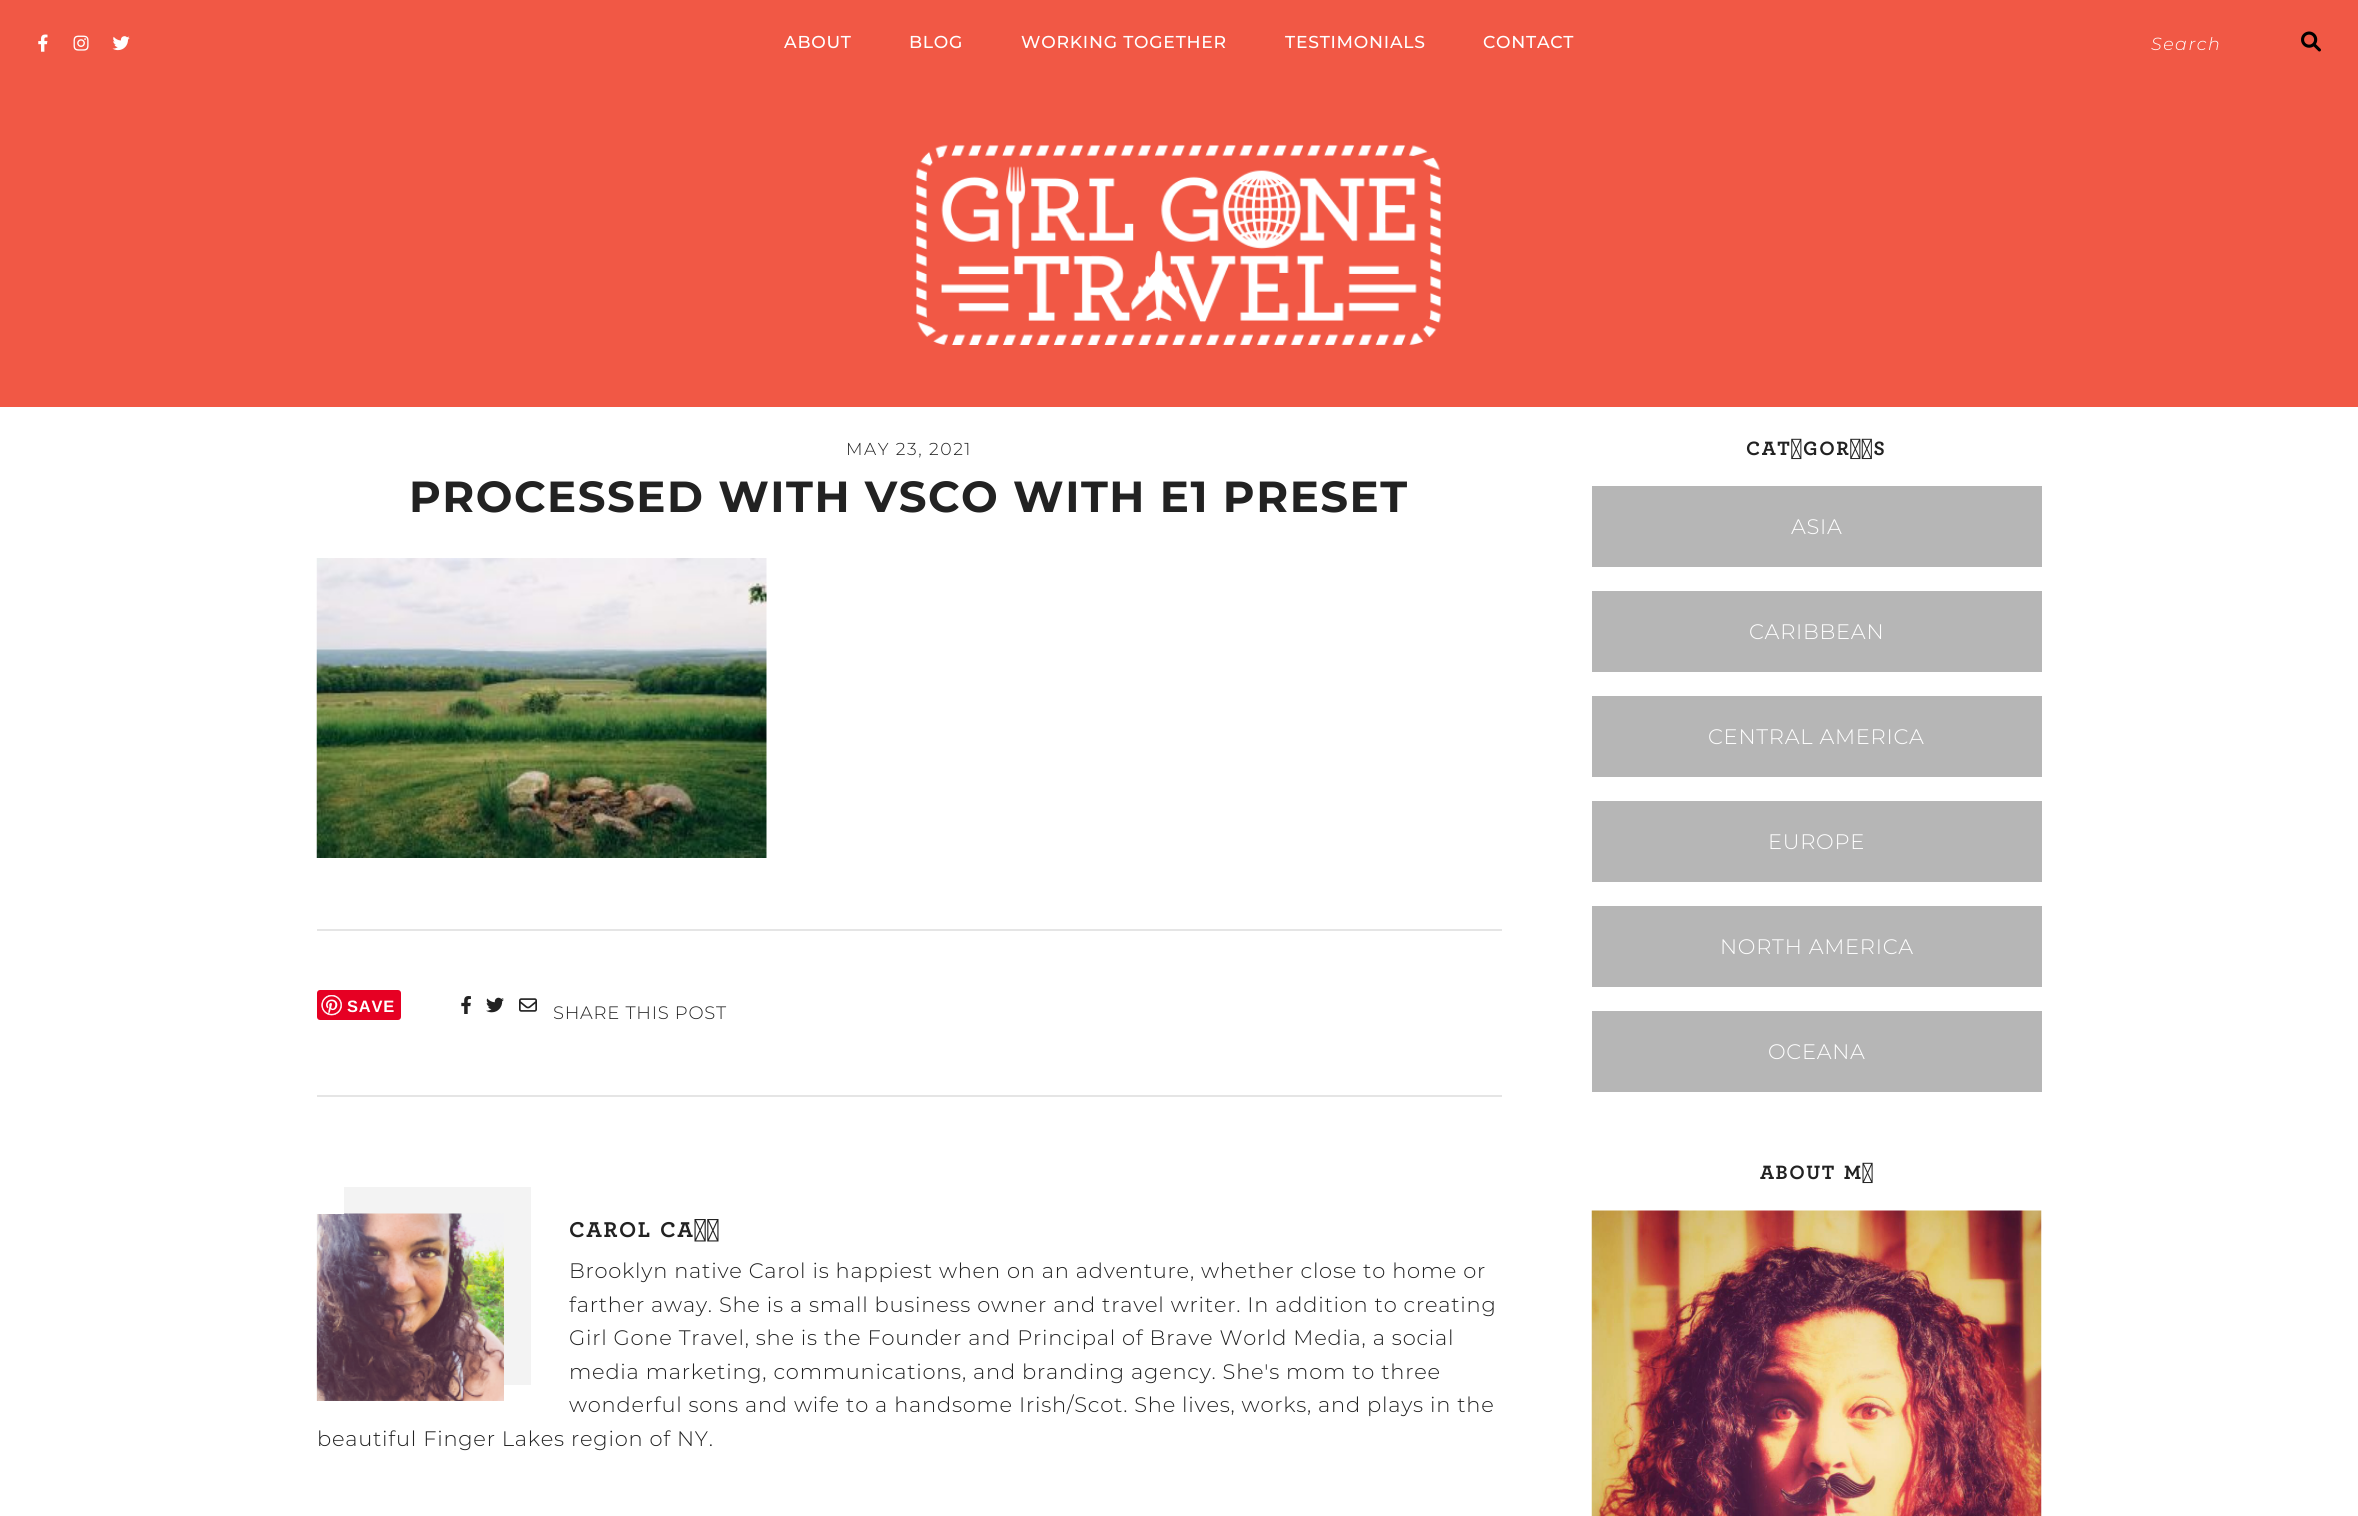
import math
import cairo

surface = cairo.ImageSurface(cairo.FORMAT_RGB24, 2358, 1516)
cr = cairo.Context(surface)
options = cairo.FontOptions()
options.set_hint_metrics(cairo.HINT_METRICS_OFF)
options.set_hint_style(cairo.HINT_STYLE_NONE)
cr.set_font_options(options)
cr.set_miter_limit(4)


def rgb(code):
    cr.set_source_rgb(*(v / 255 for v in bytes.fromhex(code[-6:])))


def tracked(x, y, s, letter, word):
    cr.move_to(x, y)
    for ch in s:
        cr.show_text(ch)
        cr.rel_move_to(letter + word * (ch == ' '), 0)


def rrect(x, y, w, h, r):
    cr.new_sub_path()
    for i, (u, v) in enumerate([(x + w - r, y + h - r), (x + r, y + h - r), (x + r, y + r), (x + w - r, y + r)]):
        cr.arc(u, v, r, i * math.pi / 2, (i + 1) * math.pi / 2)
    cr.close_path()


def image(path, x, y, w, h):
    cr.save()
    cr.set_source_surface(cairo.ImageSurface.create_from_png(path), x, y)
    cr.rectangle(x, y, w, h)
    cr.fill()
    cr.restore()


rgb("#ffffff")
cr.paint()
rgb("#f15845")
cr.rectangle(0, 0, 2358, 407)
cr.fill()
image("img/1.png", 38, 34, 10, 18)
image("img/2.png", 73, 35, 16, 16)
image("img/3.png", 112, 36, 18, 15)
image("img/4.png", 2301, 31, 20, 21)
image("img/5.png", 916, 145, 525, 200)
image("img/6.png", 316, 558, 451, 300)
rgb("#e5e5e5")
cr.rectangle(317, 929, 1185, 2)
cr.fill()
cr.rectangle(317, 1095, 1185, 2)
cr.fill()
rgb("#e60023")
rrect(317, 990, 84, 30, 3)
cr.fill()
image("img/7.png", 321, 995, 21, 21)
image("img/8.png", 461, 996, 10, 18)
image("img/9.png", 486, 997, 18, 16)
image("img/10.png", 519, 998, 18, 14)
rgb("#f3f3f3")
cr.rectangle(344, 1187, 160, 27)
cr.fill()
cr.rectangle(504, 1187, 27, 198)
cr.fill()
image("img/11.png", 316, 1213, 188, 188)
for x, y, w, h, color in [
    (317, 1213, 27, 1, "#ffffff"),
    (1592, 486, 450, 81, "#b6b6b6"),
    (1592, 591, 450, 81, "#b6b6b6"),
    (1592, 696, 450, 81, "#b6b6b6"),
    (1592, 801, 450, 81, "#b6b6b6"),
    (1592, 906, 450, 81, "#b6b6b6"),
    (1592, 1011, 450, 81, "#b6b6b6"),
]:
    rgb(color)
    cr.rectangle(x, y, w, h)
    cr.fill()
image("img/12.png", 1591, 1210, 451, 306)
cr.select_font_face("Montserrat Medium")
cr.set_font_size(17.25)
rgb("#ffffff")
for x, y, s in [
    (784, 48, "ABOUT"),
    (909, 48, "BLOG"),
    (1021, 48, "WORKING TOGETHER"),
    (1285, 48, "TESTIMONIALS"),
    (1483, 48, "CONTACT"),
]:
    tracked(x, y, s, 0.75, 0)
cr.select_font_face("Montserrat Thin", cairo.FONT_SLANT_ITALIC)
cr.set_font_size(17.5)
tracked(2151, 50, "Search", 1.5, 0)
cr.select_font_face("Montserrat Light")
cr.set_font_size(17.25)
rgb("#222222")
tracked(846, 455, "MAY 23, 2021", 1.5, 0)
cr.select_font_face("Montserrat", cairo.FONT_SLANT_NORMAL, cairo.FONT_WEIGHT_BOLD)
cr.set_font_size(43.5)
tracked(409, 512, "PROCESSED WITH VSCO WITH E1 PRESET", 1.5, 0)
cr.select_font_face("Liberation Sans", cairo.FONT_SLANT_NORMAL, cairo.FONT_WEIGHT_BOLD)
cr.set_font_size(16.5)
rgb("#ffffff")
tracked(347, 1012, "SAVE", 0.75, 0)
cr.select_font_face("Montserrat Light")
cr.set_font_size(18)
rgb("#222222")
tracked(553, 1019, "SHARE THIS POST", 0.75, 0)
cr.select_font_face("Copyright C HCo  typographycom")
cr.set_font_size(22.5)
tracked(569, 1237, "CAROL CAIN", 1.5, 2)
cr.select_font_face("Montserrat Light")
cr.set_font_size(21)
for x, y, s in [
    (569, 1278, "Brooklyn native Carol is happiest when on an adventure, whether close to home or"),
    (569, 1312, "farther away. She is a small business owner and travel writer. In addition to creating"),
    (569, 1345, "Girl Gone Travel, she is the Founder and Principal of Brave World Media, a social"),
    (569, 1379, "media marketing, communications, and branding agency. She's mom to three"),
    (569, 1412, "wonderful sons and wife to a handsome Irish/Scot. She lives, works, and plays in the"),
    (317, 1446, "beautiful Finger Lakes region of NY."),
]:
    tracked(x, y, s, 0.75, 0)
cr.select_font_face("Copyright C HCo  typographycom")
cr.set_font_size(20.25)
tracked(1746, 455, "CATEGORIES", 1.5, 0)
cr.select_font_face("Montserrat Light")
cr.set_font_size(21)
rgb("#ffffff")
for x, y, s in [
    (1791, 534, "ASIA"),
    (1749, 639, "CARIBBEAN"),
    (1708, 744, "CENTRAL AMERICA"),
    (1768, 849, "EUROPE"),
    (1720, 954, "NORTH AMERICA"),
    (1768, 1059, "OCEANA"),
]:
    tracked(x, y, s, 0.75, 0)
cr.select_font_face("Copyright C HCo  typographycom")
cr.set_font_size(20.25)
rgb("#222222")
tracked(1760, 1179, "ABOUT ME", 1.5, 2)
surface.write_to_png("page.png")
